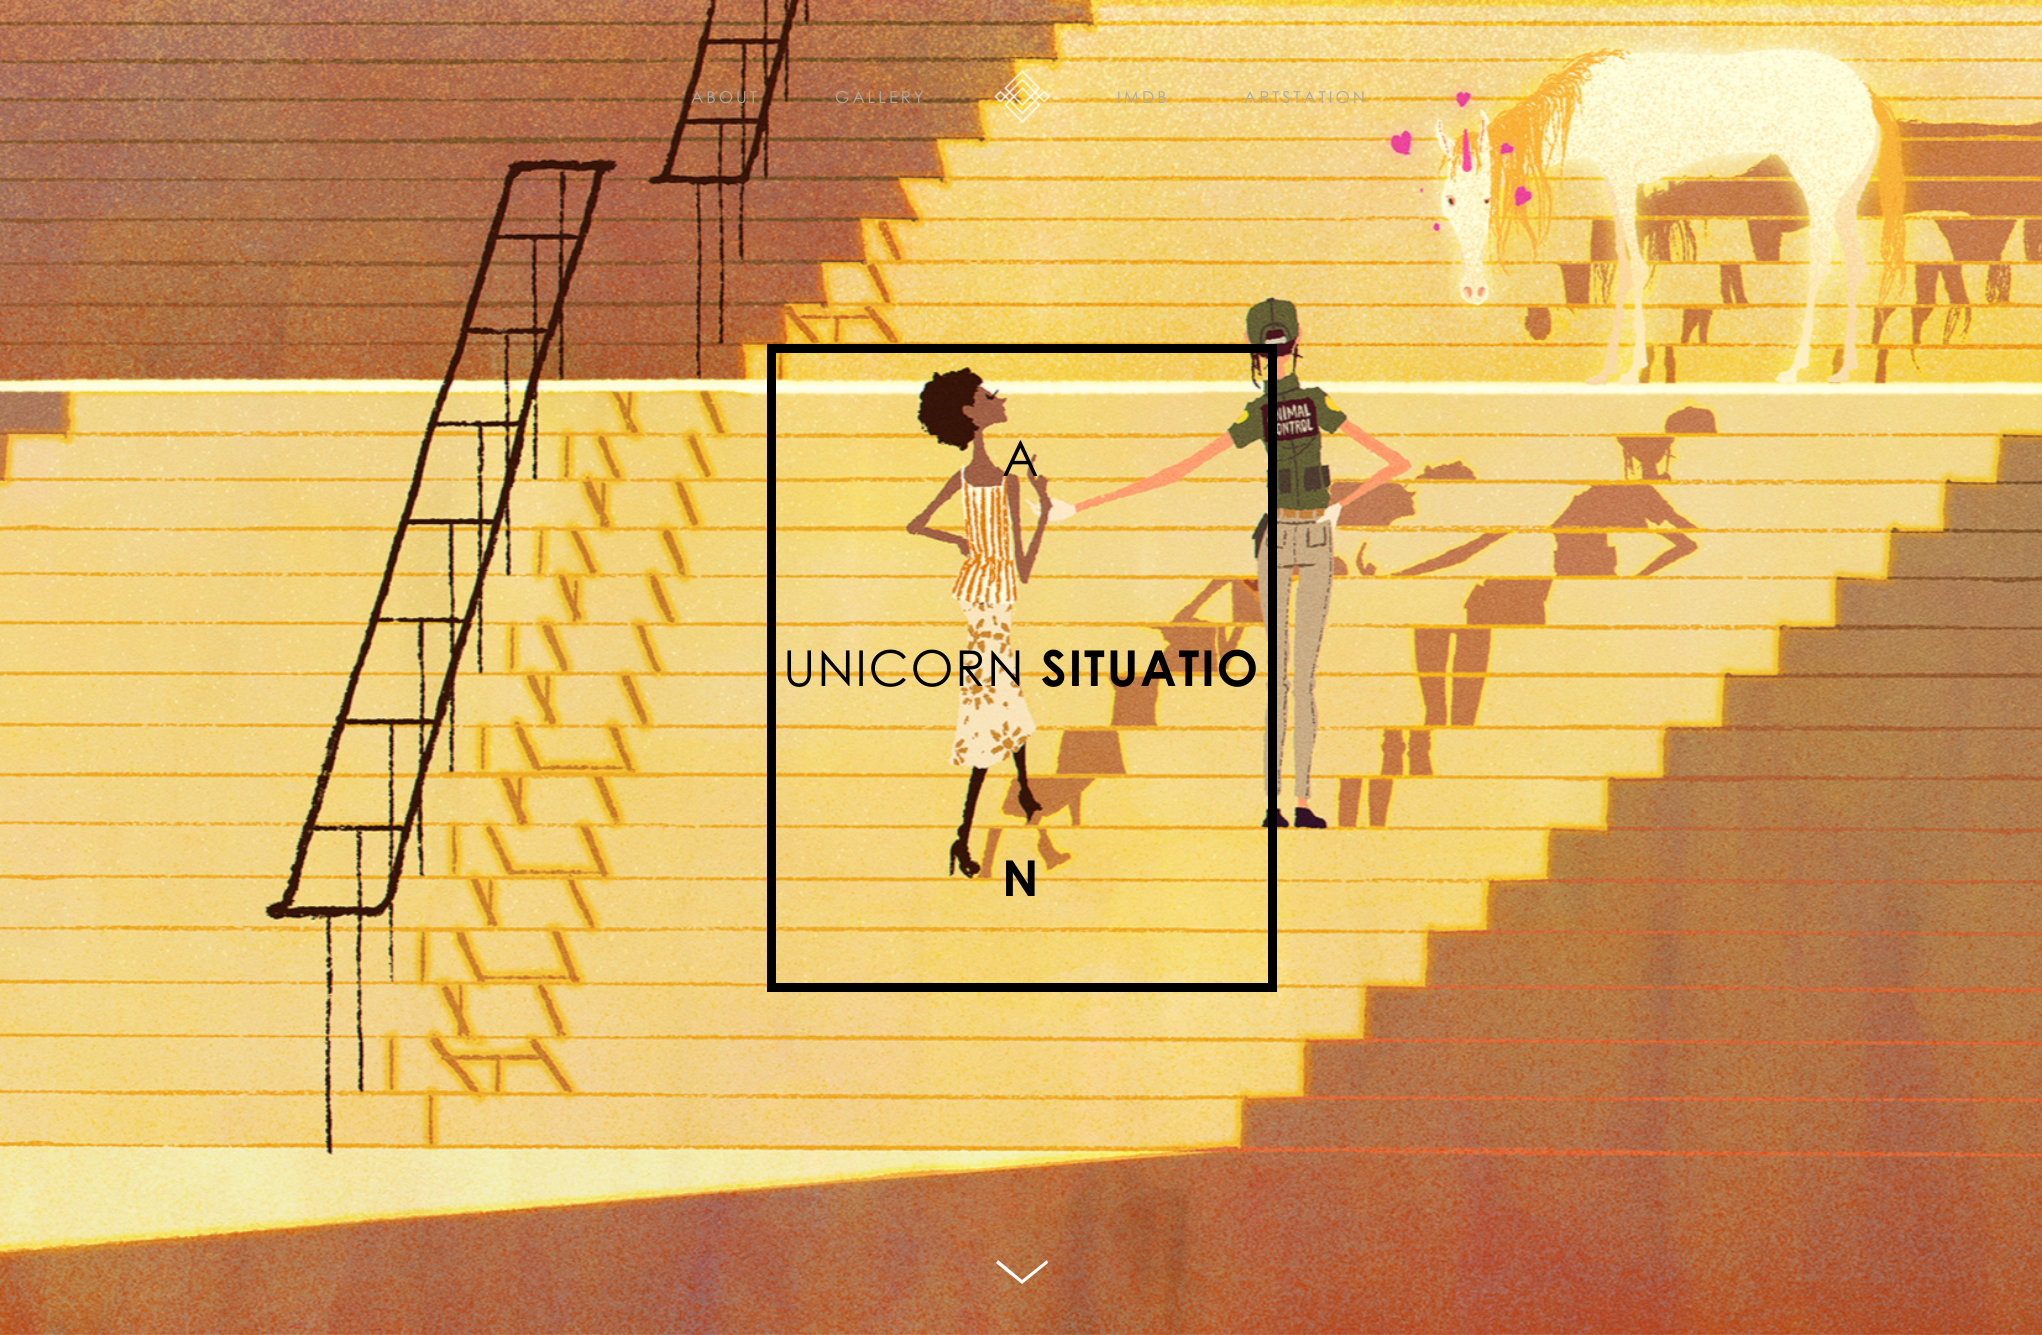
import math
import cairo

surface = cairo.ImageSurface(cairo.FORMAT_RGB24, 2042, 1335)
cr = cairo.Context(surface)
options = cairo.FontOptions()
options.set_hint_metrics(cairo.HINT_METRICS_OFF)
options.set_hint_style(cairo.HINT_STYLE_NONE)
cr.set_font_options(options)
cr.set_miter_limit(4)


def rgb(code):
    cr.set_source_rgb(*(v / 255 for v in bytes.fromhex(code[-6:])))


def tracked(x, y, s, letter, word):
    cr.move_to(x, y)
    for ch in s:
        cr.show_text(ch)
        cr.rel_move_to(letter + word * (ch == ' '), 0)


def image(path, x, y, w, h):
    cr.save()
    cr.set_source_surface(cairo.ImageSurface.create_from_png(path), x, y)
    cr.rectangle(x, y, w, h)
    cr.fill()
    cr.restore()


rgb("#ffffff")
cr.paint()
image("img/2.png", 0, 0, 2042, 1335)
image("img/1.png", 994, 70, 56, 53)
cr.rectangle(771.5, 348.5, 501, 639)
rgb("#000000")
cr.set_line_width(9)
cr.stroke()
rgb("#ffffff")
cr.new_path()
cr.move_to(1022, 1284)
cr.line_to(996, 1263)
cr.line_to(998, 1260)
cr.line_to(1022, 1280)
cr.line_to(1047, 1260)
cr.line_to(1048, 1263)
cr.close_path()
cr.fill()
cr.set_source_rgba(0.498, 0.498, 0.498, 0.04)
cr.new_path()
cr.move_to(1969, 1257)
cr.line_to(1968, 1260)
cr.line_to(1943, 1240)
cr.line_to(1919, 1260)
cr.line_to(1917, 1257)
cr.line_to(1943, 1236)
cr.close_path()
cr.fill()
cr.select_font_face("Century Gothic")
cr.set_font_size(16.5)
rgb("#aaaaaa")
for x, y, s in [
    (691, 103, "ABOUT"),
    (835, 103, "GALLERY"),
    (1117, 103, "IMDB"),
    (1244, 103, "ARTSTATION"),
]:
    tracked(x, y, s, 3, 0)
cr.set_font_size(49.5)
rgb("#000000")
tracked(1002, 476, "A", 1.75, 0)
tracked(783, 686, "UNICORN", 1.75, 0)
cr.select_font_face("Century Gothic", cairo.FONT_SLANT_NORMAL, cairo.FONT_WEIGHT_BOLD)
tracked(1041, 686, "SITUATIO", 1.75, 0)
tracked(1002, 896, "N", 1.75, 0)
surface.write_to_png("page.png")
